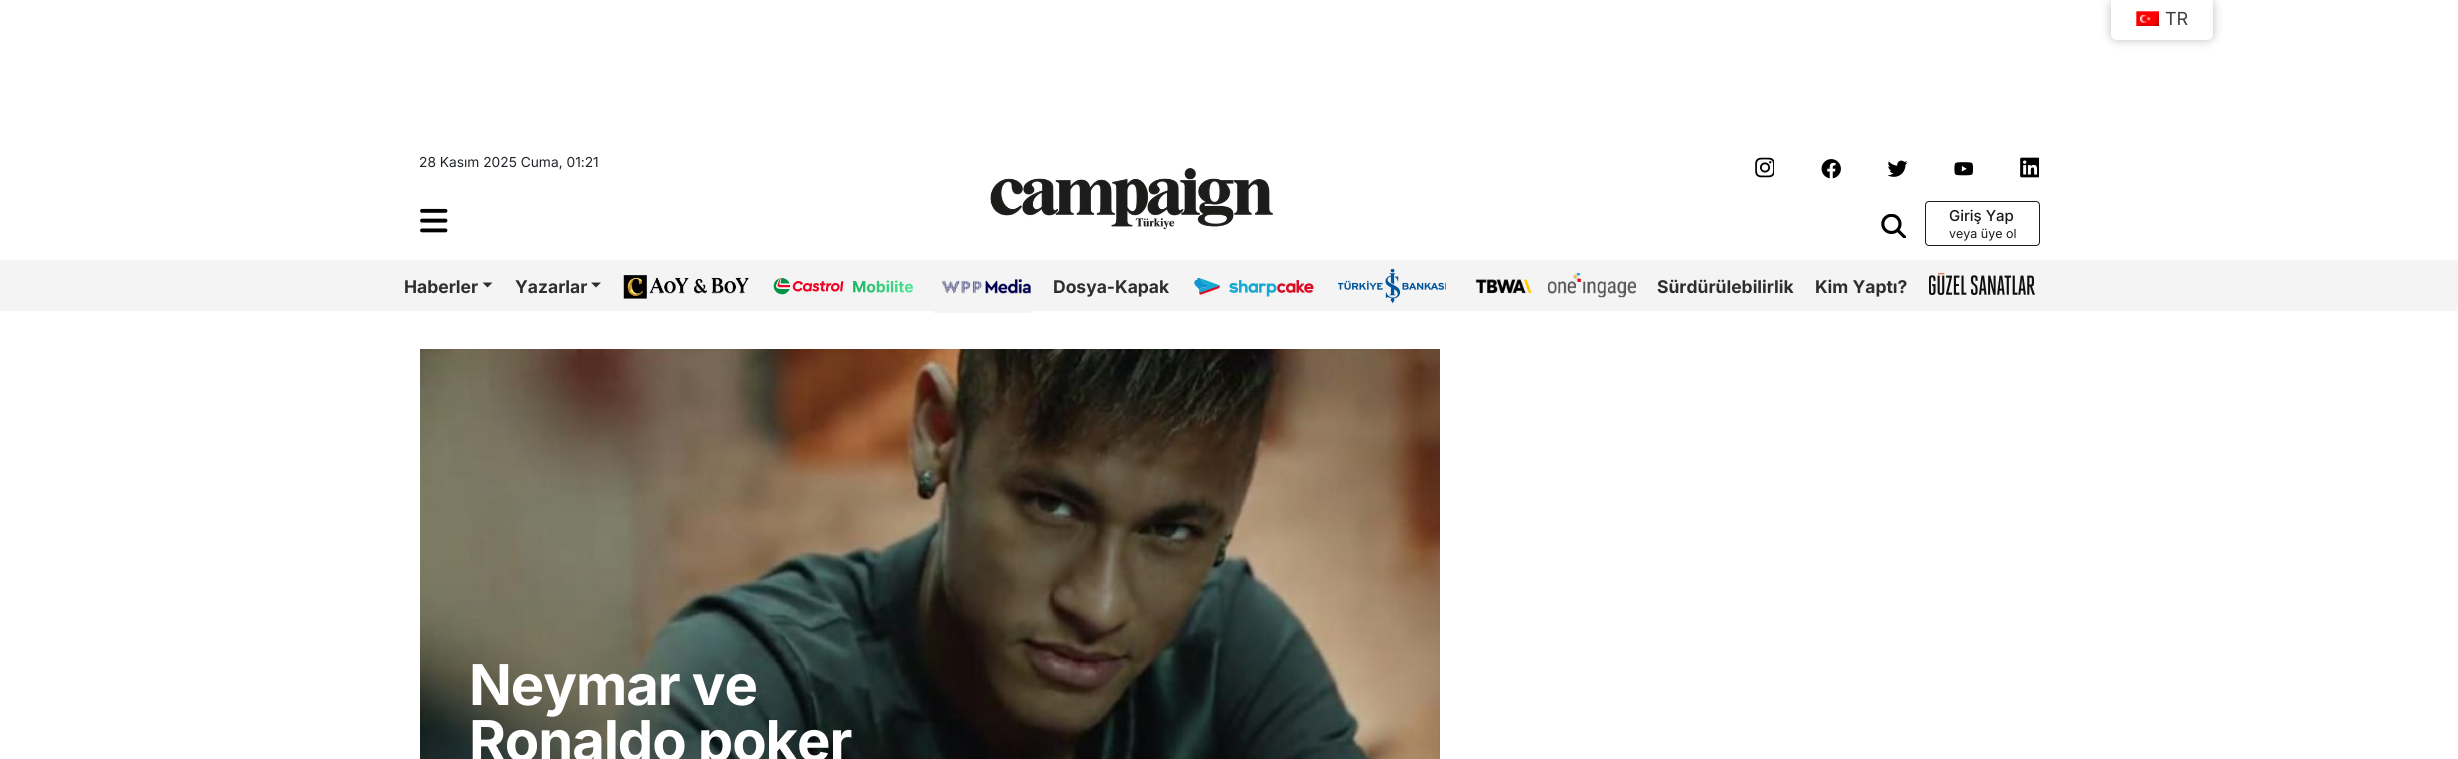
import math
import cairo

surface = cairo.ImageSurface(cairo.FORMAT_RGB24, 2458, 759)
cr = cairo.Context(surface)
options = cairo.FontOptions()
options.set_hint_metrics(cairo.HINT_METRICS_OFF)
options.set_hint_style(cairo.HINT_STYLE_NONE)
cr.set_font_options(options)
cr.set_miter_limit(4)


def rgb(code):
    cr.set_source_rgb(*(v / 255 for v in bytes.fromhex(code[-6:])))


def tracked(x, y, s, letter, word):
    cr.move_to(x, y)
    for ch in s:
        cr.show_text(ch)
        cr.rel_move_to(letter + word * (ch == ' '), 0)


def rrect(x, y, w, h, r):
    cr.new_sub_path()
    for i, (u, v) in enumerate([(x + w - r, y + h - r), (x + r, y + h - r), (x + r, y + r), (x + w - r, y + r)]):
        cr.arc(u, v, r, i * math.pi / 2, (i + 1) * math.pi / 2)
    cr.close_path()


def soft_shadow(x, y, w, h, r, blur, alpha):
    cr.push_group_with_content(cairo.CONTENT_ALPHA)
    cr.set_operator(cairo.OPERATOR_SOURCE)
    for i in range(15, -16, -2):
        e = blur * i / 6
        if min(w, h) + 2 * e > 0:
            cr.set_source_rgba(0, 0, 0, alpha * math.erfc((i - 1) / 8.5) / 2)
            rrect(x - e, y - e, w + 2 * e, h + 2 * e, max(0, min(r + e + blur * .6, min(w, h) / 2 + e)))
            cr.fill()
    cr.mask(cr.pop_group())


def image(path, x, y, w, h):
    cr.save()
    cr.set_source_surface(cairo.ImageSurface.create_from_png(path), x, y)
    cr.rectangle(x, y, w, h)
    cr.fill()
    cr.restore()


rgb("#ffffff")
cr.paint()
rgb("#000000")
soft_shadow(2111, 0, 102, 40, 6, 5, 0.25)
rgb("#ffffff")
cr.new_path()
cr.move_to(2111, 0)
cr.line_to(2213, 0)
cr.line_to(2213, 34)
cr.curve_to(2213, 37.5, 2210.5, 40, 2207, 40)
cr.line_to(2117, 40)
cr.curve_to(2113.5, 40, 2111, 37.5, 2111, 34)
cr.close_path()
cr.fill()
image("img/1.png", 2136, 11, 23, 15)
image("img/2.png", 420, 208, 28, 25)
image("img/3.png", 990, 167, 283, 63)
image("img/4.png", 1755, 157, 19, 21)
image("img/5.png", 1821, 159, 20, 20)
image("img/6.png", 1888, 160, 20, 17)
image("img/7.png", 1954, 162, 19, 14)
image("img/8.png", 2020, 157, 19, 21)
image("img/9.png", 1881, 214, 25, 24)
rrect(1925.5, 201.5, 114, 44, 3.5)
rgb("#1b1b1b")
cr.set_line_width(1)
cr.stroke()
rgb("#f4f4f4")
cr.rectangle(0, 260, 2458, 51)
cr.fill()
rgb("#2e2e2e")
cr.new_path()
cr.move_to(482.5, 282.5)
cr.line_to(492.5, 282.5)
cr.line_to(487.5, 287.5)
cr.close_path()
cr.fill()
cr.new_path()
cr.move_to(591, 282.5)
cr.line_to(601, 282.5)
cr.line_to(596, 287.5)
cr.close_path()
cr.fill()
image("img/10.png", 623, 275, 126, 24)
image("img/11.png", 773, 278, 140, 17)
rgb("#f4f4f4")
cr.rectangle(934, 311, 97, 2)
cr.fill()
image("img/12.png", 942, 279, 89, 15)
image("img/13.png", 1194, 277, 120, 20)
image("img/14.png", 1338, 269, 108, 34)
image("img/15.png", 1475, 279, 57, 15)
image("img/16.png", 1548, 273, 88, 25)
image("img/17.png", 1929, 273, 106, 22)
image("img/18.png", 420, 349, 1020, 410)
cr.select_font_face("Inter")
cr.set_font_size(18)
rgb("#404040")
cr.move_to(2165, 25)
cr.show_text("TR")
cr.set_font_size(13.75)
rgb("#212529")
cr.move_to(419, 167)
cr.show_text("28 Kasım 2025 Cuma, 01:21")
cr.select_font_face("Inter Medium")
cr.set_font_size(15)
rgb("#1b1b1b")
cr.move_to(1949, 221)
cr.show_text("Giriş Yap")
cr.select_font_face("Inter")
cr.set_font_size(12.5)
cr.move_to(1949, 238)
cr.show_text("veya üye ol")
cr.select_font_face("Inter", cairo.FONT_SLANT_NORMAL, cairo.FONT_WEIGHT_BOLD)
cr.set_font_size(17.5)
rgb("#2e2e2e")
for x, y, s in [
    (404, 293, "Haberler"),
    (515, 293, "Yazarlar"),
    (1053, 293, "Dosya-Kapak"),
    (1657, 293, "Sürdürülebilirlik"),
    (1815, 293, "Kim Yaptı?"),
]:
    cr.move_to(x, y)
    cr.show_text(s)
cr.set_font_size(56.25)
rgb("#ffffff")
tracked(469, 705, "Neymar ve", -1.1, 0)
tracked(469, 761, "Ronaldo poker", -1.1, 0)
surface.write_to_png("page.png")
